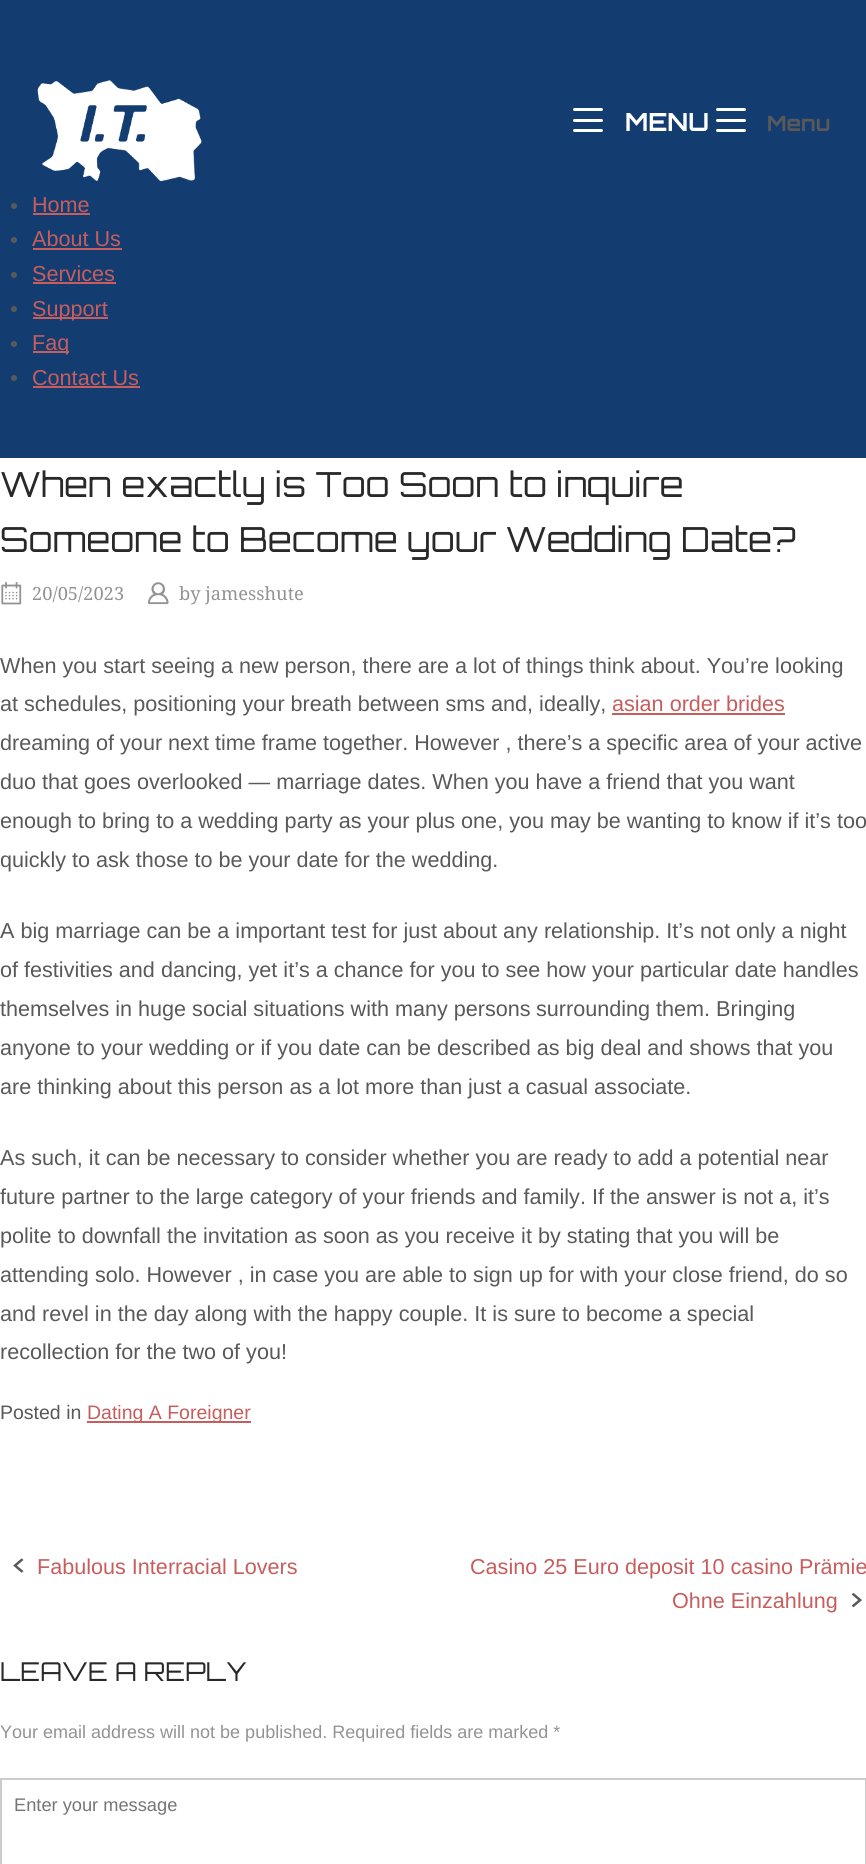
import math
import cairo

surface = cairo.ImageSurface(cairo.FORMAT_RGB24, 866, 1864)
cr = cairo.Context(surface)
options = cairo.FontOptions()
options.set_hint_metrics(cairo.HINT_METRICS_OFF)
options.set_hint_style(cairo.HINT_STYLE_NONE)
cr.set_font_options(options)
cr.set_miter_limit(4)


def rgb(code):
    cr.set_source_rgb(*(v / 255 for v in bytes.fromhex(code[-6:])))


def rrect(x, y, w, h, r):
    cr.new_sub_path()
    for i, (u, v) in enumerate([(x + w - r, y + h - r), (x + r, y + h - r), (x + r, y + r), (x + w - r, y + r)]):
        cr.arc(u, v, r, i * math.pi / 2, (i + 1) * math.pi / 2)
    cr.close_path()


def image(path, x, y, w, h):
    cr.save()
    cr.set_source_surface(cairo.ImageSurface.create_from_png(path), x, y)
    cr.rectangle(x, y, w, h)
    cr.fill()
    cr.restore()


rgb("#ffffff")
cr.paint()
rgb("#133d71")
cr.rectangle(0, 0, 866, 458)
cr.fill()
image("img/1.png", 37, 80, 165, 102)
rgb("#ffffff")
rrect(573, 108, 30, 3, 1.5)
cr.fill()
rrect(573, 119, 30, 3, 1.5)
cr.fill()
rrect(573, 129, 30, 3, 1.5)
cr.fill()
rrect(716, 108, 30, 3, 1.5)
cr.fill()
rrect(716, 119, 30, 3, 1.5)
cr.fill()
rrect(716, 129, 30, 3, 1.5)
cr.fill()
rgb("#595959")
cr.arc(14, 206, 3, 0, 2 * math.pi)
cr.fill()
rgb("#c75d5d")
cr.rectangle(33, 213, 57, 2)
cr.fill()
rgb("#595959")
cr.arc(14, 240, 3, 0, 2 * math.pi)
cr.fill()
rgb("#c75d5d")
cr.rectangle(33, 248, 89, 2)
cr.fill()
rgb("#595959")
cr.arc(14, 275, 3, 0, 2 * math.pi)
cr.fill()
rgb("#c75d5d")
cr.rectangle(33, 282, 83, 2)
cr.fill()
rgb("#595959")
cr.arc(14, 309, 3, 0, 2 * math.pi)
cr.fill()
rgb("#c75d5d")
cr.rectangle(33, 317, 75, 2)
cr.fill()
rgb("#595959")
cr.arc(14, 344, 3, 0, 2 * math.pi)
cr.fill()
rgb("#c75d5d")
cr.rectangle(33, 351, 36, 2)
cr.fill()
rgb("#595959")
cr.arc(14, 378, 3, 0, 2 * math.pi)
cr.fill()
rgb("#c75d5d")
cr.rectangle(33, 386, 107, 2)
cr.fill()
image("img/2.png", 1, 582, 21, 23)
image("img/3.png", 147, 582, 22, 23)
cr.rectangle(612, 713, 173, 2)
cr.fill()
cr.rectangle(87, 1421, 164, 2)
cr.fill()
image("img/4.png", 13, 1558, 11, 15)
image("img/5.png", 851, 1592, 11, 16)
cr.rectangle(1, 1779, 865, 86)
rgb("#cccccc")
cr.stroke()
cr.select_font_face("Orbitron", cairo.FONT_SLANT_NORMAL, cairo.FONT_WEIGHT_BOLD)
cr.set_font_size(25)
rgb("#ffffff")
cr.move_to(625, 131)
cr.show_text("MENU")
cr.set_font_size(21)
rgb("#595959")
cr.move_to(767, 131)
cr.show_text("Menu")
cr.select_font_face("Liberation Sans")
cr.set_font_size(21.6)
rgb("#c75d5d")
for x, y, s in [
    (32, 212, "Home"),
    (32, 246, "About Us"),
    (32, 281, "Services"),
    (32, 316, "Support"),
    (32, 350, "Faq"),
    (32, 385, "Contact Us"),
]:
    cr.move_to(x, y)
    cr.show_text(s)
cr.select_font_face("Orbitron")
cr.set_font_size(34.6)
rgb("#292929")
cr.move_to(0, 497)
cr.show_text("When exactly is Too Soon to inquire")
cr.move_to(0, 552)
cr.show_text("Someone to Become your Wedding Date?")
cr.select_font_face("Droid Serif")
cr.set_font_size(18.25)
rgb("#939393")
cr.move_to(32, 600)
cr.show_text("20/05/2023")
cr.move_to(179, 600)
cr.show_text("by jamesshute")
cr.select_font_face("Liberation Sans")
cr.set_font_size(21.6)
rgb("#595959")
for x, y, s in [
    (0, 673, "When you start seeing a new person, there are a lot of things"),
    (589, 673, "think about. You’re looking"),
    (0, 711, "at schedules, positioning your breath between sms and, ideally,"),
]:
    cr.move_to(x, y)
    cr.show_text(s)
rgb("#c75d5d")
cr.move_to(612, 711)
cr.show_text("asian order brides")
rgb("#595959")
for x, y, s in [
    (0, 750, "dreaming of your next time frame together. However , there’s a specific area of your active"),
    (0, 789, "duo that goes overlooked — marriage dates. When you have a friend that you want"),
    (0, 828, "enough to bring to a wedding party as your plus one, you may be wanting to know if it’s too"),
    (0, 867, "quickly to ask those to be your date for the wedding."),
    (0, 938, "A big marriage can be a important test for just about any relationship. It’s not only a night"),
    (0, 977, "of festivities and dancing, yet it’s a chance for you to see how your particular date handles"),
    (0, 1016, "themselves in huge social situations with many persons"),
    (536, 1016, "surrounding them. Bringing"),
    (0, 1055, "anyone to your wedding or if you date can be described as big deal and shows that you"),
    (0, 1094, "are thinking about this person as a lot more than"),
    (468, 1094, "just a casual associate."),
    (0, 1165, "As such, it can be necessary to consider whether you are ready to add a potential near"),
    (0, 1204, "future partner to the large category of your friends and family. If the answer is not a, it’s"),
    (0, 1243, "polite to downfall the invitation as soon as you receive it by stating that you will be"),
    (0, 1282, "attending solo. However , in case you are able to sign up for with your close friend, do so"),
    (0, 1321, "and revel in the day along with the happy couple. It is sure"),
    (562, 1321, "to become a special"),
    (0, 1359, "recollection for the two of you!"),
]:
    cr.move_to(x, y)
    cr.show_text(s)
cr.set_font_size(19.5)
cr.move_to(0, 1419)
cr.show_text("Posted in")
rgb("#c75d5d")
cr.move_to(87, 1419)
cr.show_text("Dating A Foreigner")
cr.set_font_size(21.6)
for x, y, s in [
    (37, 1574, "Fabulous Interracial Lovers"),
    (470, 1574, "Casino 25 Euro deposit 10 casino Prämie"),
    (672, 1608, "Ohne Einzahlung"),
]:
    cr.move_to(x, y)
    cr.show_text(s)
cr.select_font_face("Orbitron")
cr.set_font_size(26)
rgb("#292929")
cr.move_to(0, 1681)
cr.show_text("LEAVE A REPLY")
cr.select_font_face("Liberation Sans")
cr.set_font_size(18)
rgb("#939393")
cr.move_to(0, 1738)
cr.show_text("Your email address will not be published. Required fields are marked *")
cr.set_font_size(18.25)
rgb("#757575")
cr.move_to(14, 1811)
cr.show_text("Enter your message")
surface.write_to_png("page.png")
